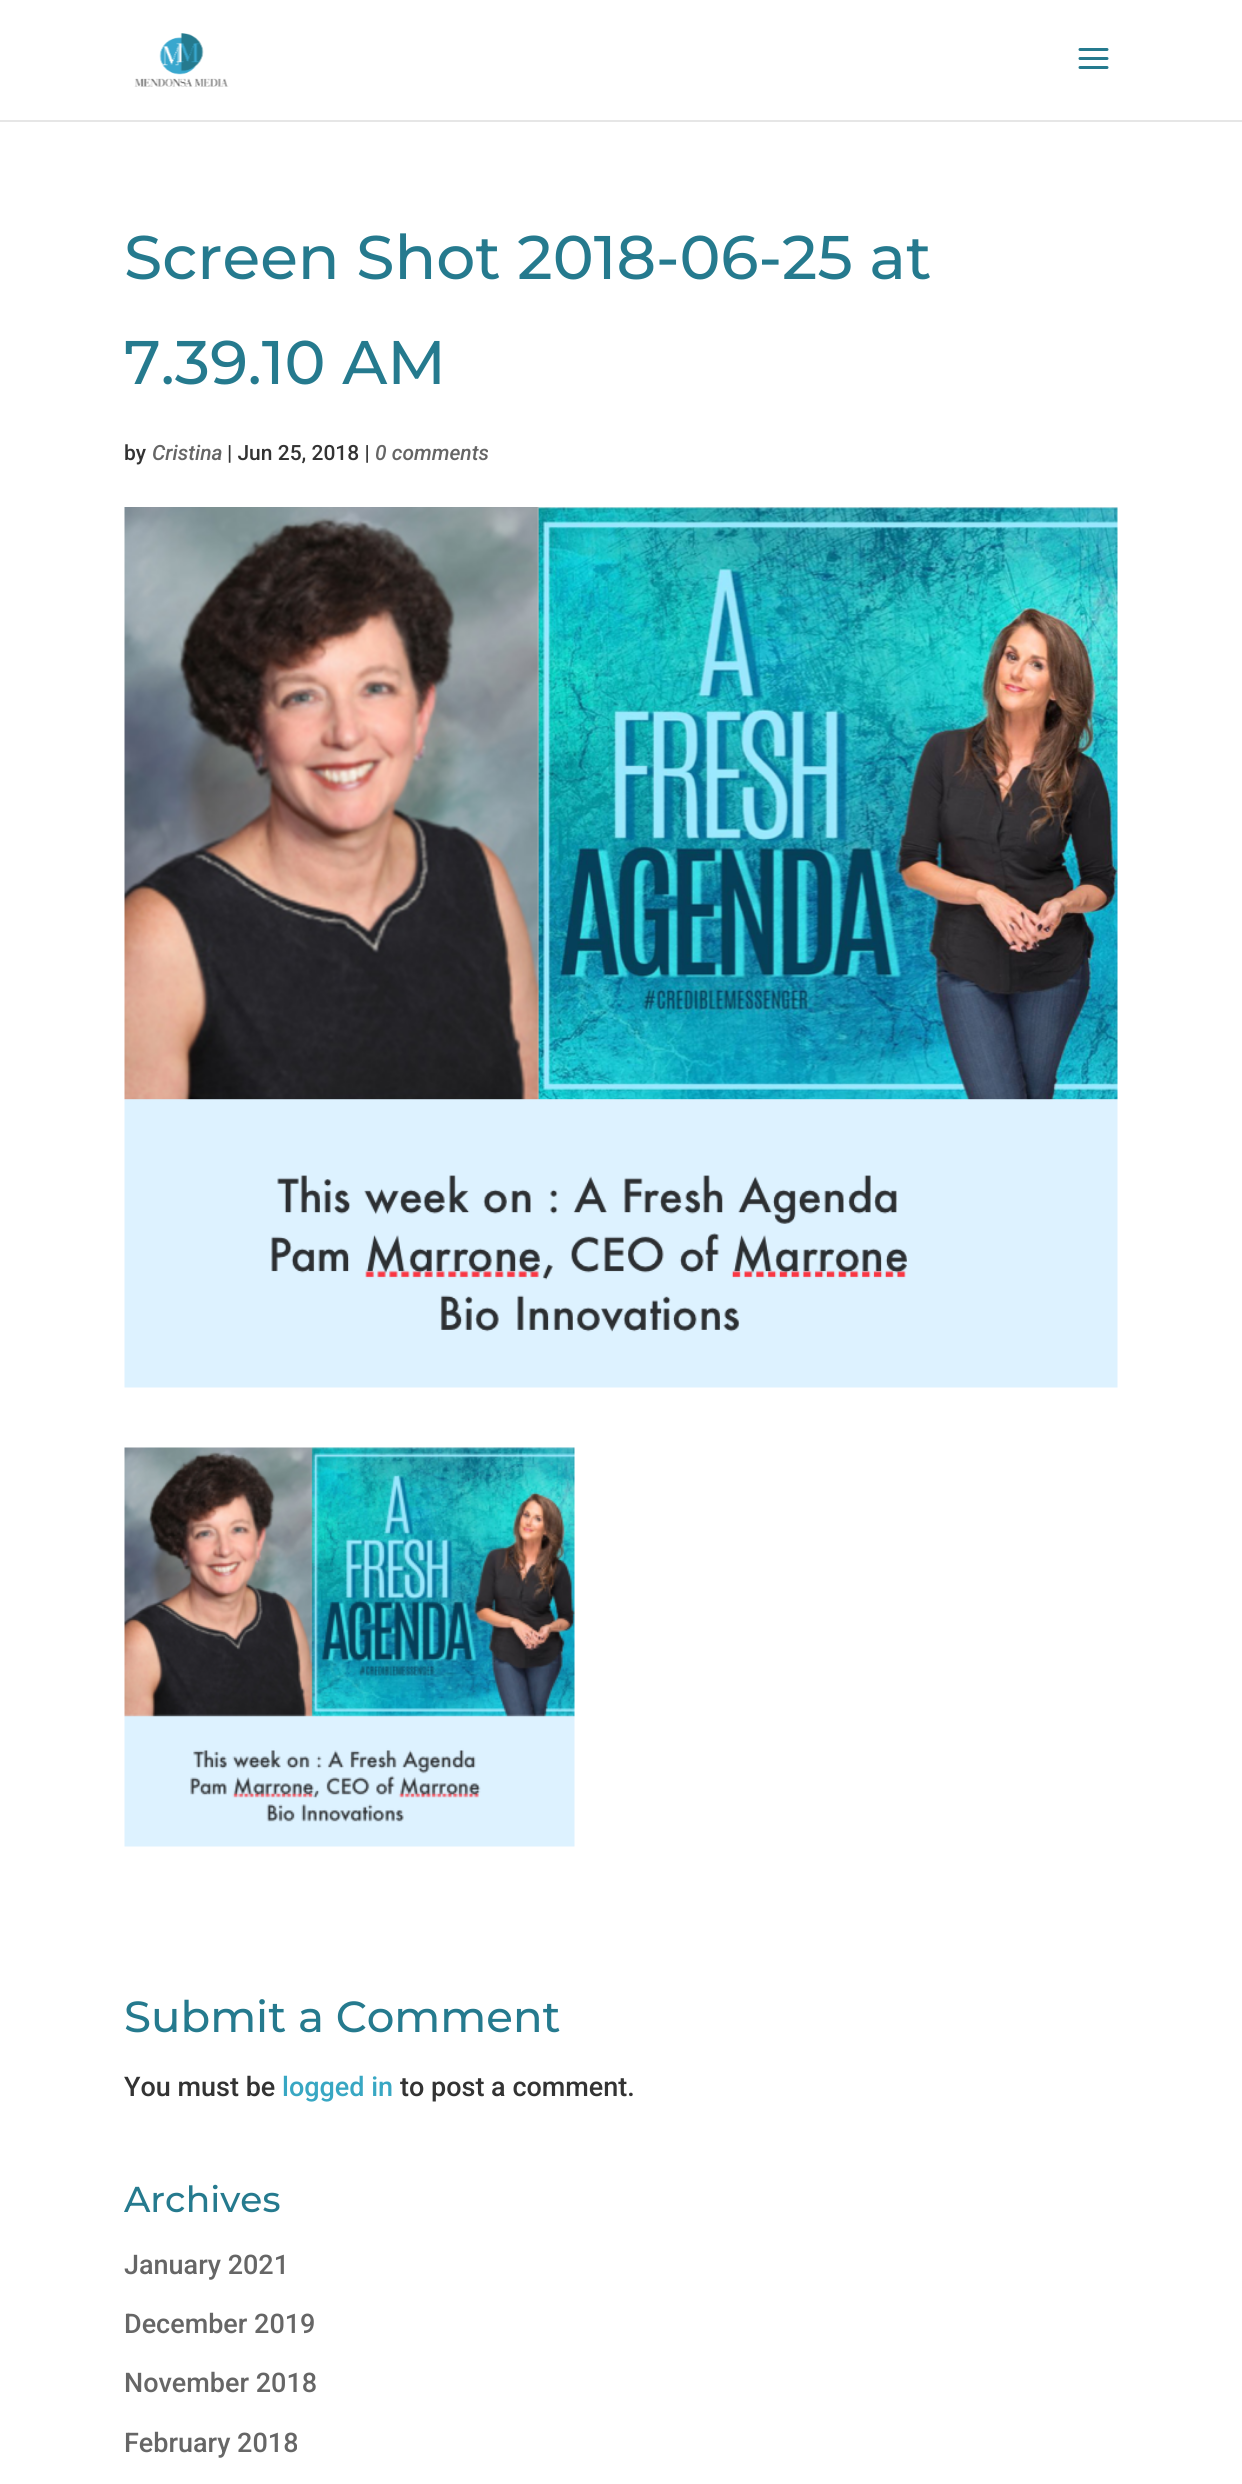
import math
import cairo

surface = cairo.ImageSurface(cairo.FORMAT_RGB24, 1242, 2484)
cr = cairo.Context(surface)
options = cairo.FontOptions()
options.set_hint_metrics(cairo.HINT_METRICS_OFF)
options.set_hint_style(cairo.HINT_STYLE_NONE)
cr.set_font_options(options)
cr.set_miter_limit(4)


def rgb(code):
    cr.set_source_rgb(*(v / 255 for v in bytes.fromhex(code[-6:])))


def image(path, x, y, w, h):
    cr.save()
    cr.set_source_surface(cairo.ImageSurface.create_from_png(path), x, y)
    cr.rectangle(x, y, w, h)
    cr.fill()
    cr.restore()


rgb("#ffffff")
cr.paint()
rgb("#e6e6e6")
cr.rectangle(0, 120, 1242, 2)
cr.fill()
image("img/1.png", 134, 33, 95, 54)
image("img/2.png", 1078, 48, 31, 21)
image("img/3.png", 124, 507, 994, 881)
image("img/4.png", 124, 1447, 451, 400)
cr.select_font_face("Montserrat Thin")
cr.set_font_size(61.5)
rgb("#257a8e")
cr.move_to(124, 279)
cr.show_text("Screen Shot 2018-06-25 at")
cr.move_to(124, 384)
cr.show_text("7.39.10 AM")
cr.select_font_face("Roboto Medium")
cr.set_font_size(21)
rgb("#333333")
cr.move_to(124, 460)
cr.show_text("by")
cr.select_font_face("Roboto Medium", cairo.FONT_SLANT_ITALIC)
rgb("#666666")
cr.move_to(152, 460)
cr.show_text("Cristina")
cr.select_font_face("Roboto Medium")
rgb("#333333")
cr.move_to(227, 460)
cr.show_text("| Jun 25, 2018 |")
cr.select_font_face("Roboto Medium", cairo.FONT_SLANT_ITALIC)
rgb("#666666")
cr.move_to(375, 460)
cr.show_text("0 comments")
cr.select_font_face("Montserrat Thin")
cr.set_font_size(43.5)
rgb("#257a8e")
cr.move_to(124, 2032)
cr.show_text("Submit a Comment")
cr.select_font_face("Roboto Medium")
cr.set_font_size(27)
rgb("#333333")
cr.move_to(124, 2096)
cr.show_text("You must be")
rgb("#38a7c3")
cr.move_to(282, 2096)
cr.show_text("logged in")
rgb("#333333")
cr.move_to(400, 2096)
cr.show_text("to post a comment.")
cr.select_font_face("Montserrat Thin")
cr.set_font_size(36)
rgb("#257a8e")
cr.move_to(124, 2212)
cr.show_text("Archives")
cr.select_font_face("Roboto Medium")
cr.set_font_size(27)
rgb("#666666")
for x, y, s in [
    (124, 2274, "January 2021"),
    (124, 2333, "December 2019"),
    (124, 2392, "November 2018"),
    (124, 2452, "February 2018"),
]:
    cr.move_to(x, y)
    cr.show_text(s)
surface.write_to_png("page.png")
